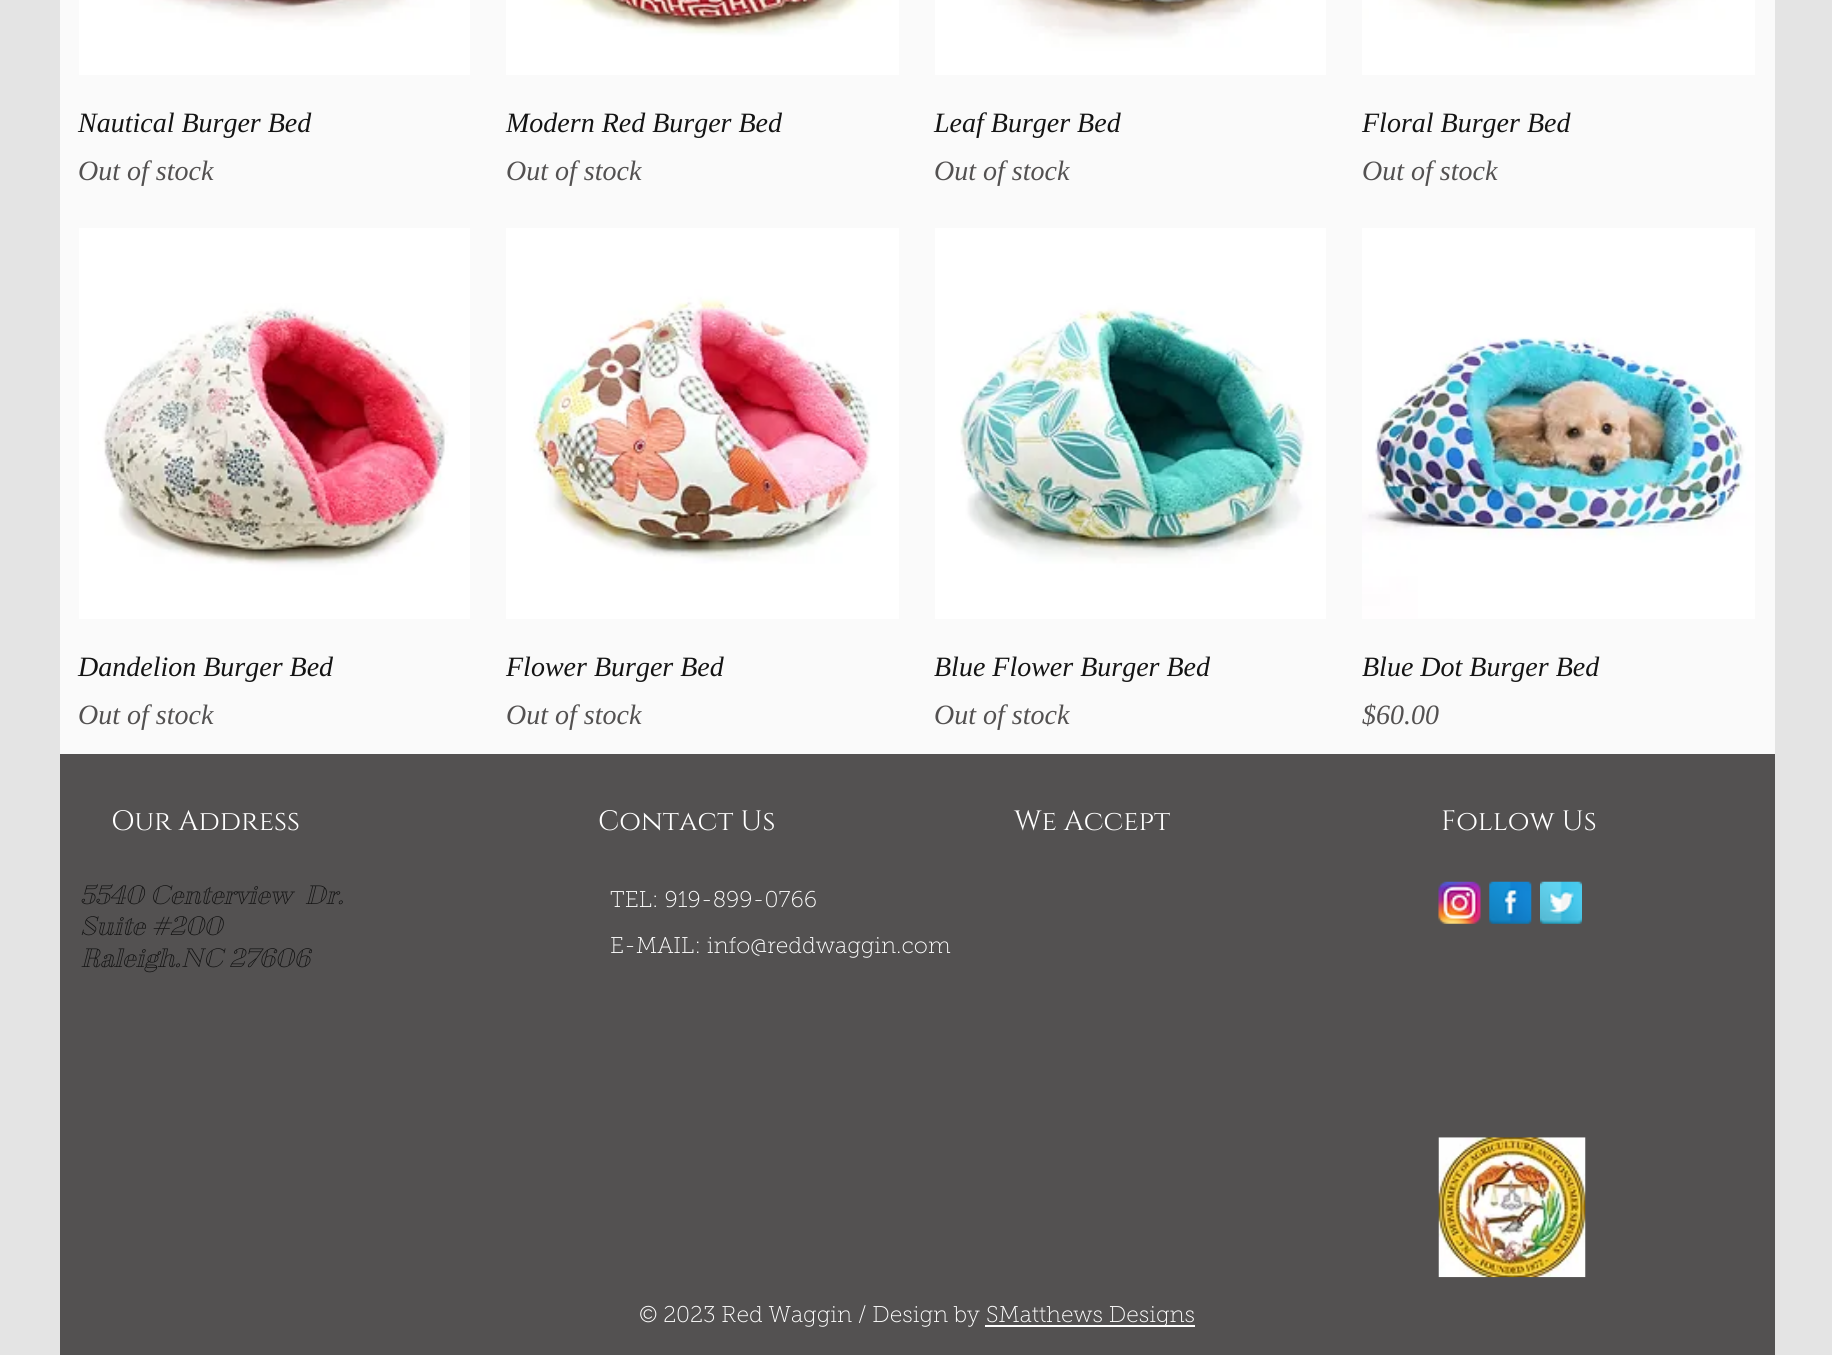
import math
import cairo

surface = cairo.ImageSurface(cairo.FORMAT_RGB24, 1832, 1355)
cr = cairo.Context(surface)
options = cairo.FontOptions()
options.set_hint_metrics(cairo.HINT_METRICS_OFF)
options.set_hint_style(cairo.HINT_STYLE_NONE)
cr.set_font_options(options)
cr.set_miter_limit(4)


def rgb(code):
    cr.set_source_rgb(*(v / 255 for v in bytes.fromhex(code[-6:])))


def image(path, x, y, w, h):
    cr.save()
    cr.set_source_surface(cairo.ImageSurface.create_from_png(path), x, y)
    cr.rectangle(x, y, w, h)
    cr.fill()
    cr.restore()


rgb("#e4e4e4")
cr.paint()
rgb("#fafafa")
cr.rectangle(60, 0, 1715, 754)
cr.fill()
image("img/1.png", 79, 0, 391, 75)
image("img/2.png", 506, 0, 393, 75)
image("img/3.png", 935, 0, 391, 75)
image("img/4.png", 1362, 0, 393, 75)
image("img/5.png", 79, 228, 391, 391)
image("img/6.png", 506, 228, 393, 391)
image("img/7.png", 935, 228, 391, 391)
image("img/8.png", 1362, 228, 393, 391)
rgb("#535151")
cr.rectangle(60, 754, 1715, 601)
cr.fill()
image("img/9.png", 1438, 881, 43, 43)
image("img/10.png", 1489, 881, 43, 43)
image("img/11.png", 1540, 881, 42, 43)
image("img/12.png", 1438, 1137, 148, 141)
rgb("#ffffff")
cr.rectangle(985, 1325, 210, 2)
cr.fill()
cr.select_font_face("Liberation Serif", cairo.FONT_SLANT_ITALIC)
cr.set_font_size(28)
rgb("#141414")
cr.move_to(78, 132)
cr.show_text("Nautical Burger Bed")
rgb("#535151")
cr.move_to(78, 180)
cr.show_text("Out of stock")
rgb("#141414")
cr.move_to(506, 132)
cr.show_text("Modern Red Burger Bed")
rgb("#535151")
cr.move_to(506, 180)
cr.show_text("Out of stock")
rgb("#141414")
cr.move_to(934, 132)
cr.show_text("Leaf Burger Bed")
rgb("#535151")
cr.move_to(934, 180)
cr.show_text("Out of stock")
rgb("#141414")
cr.move_to(1362, 132)
cr.show_text("Floral Burger Bed")
rgb("#535151")
cr.move_to(1362, 180)
cr.show_text("Out of stock")
rgb("#141414")
cr.move_to(78, 676)
cr.show_text("Dandelion Burger Bed")
rgb("#535151")
cr.move_to(78, 724)
cr.show_text("Out of stock")
rgb("#141414")
cr.move_to(506, 676)
cr.show_text("Flower Burger Bed")
rgb("#535151")
cr.move_to(506, 724)
cr.show_text("Out of stock")
rgb("#141414")
cr.move_to(934, 676)
cr.show_text("Blue Flower Burger Bed")
rgb("#535151")
cr.move_to(934, 724)
cr.show_text("Out of stock")
rgb("#141414")
cr.move_to(1362, 676)
cr.show_text("Blue Dot Burger Bed")
rgb("#535151")
cr.move_to(1362, 724)
cr.show_text("$60.00")
cr.select_font_face("Cinzel")
rgb("#ffffff")
for x, y, s in [
    (111, 830, "Our Address"),
    (598, 830, "Contact Us"),
    (1014, 830, "We Accept"),
    (1441, 830, "Follow Us"),
]:
    cr.move_to(x, y)
    cr.show_text(s)
cr.select_font_face("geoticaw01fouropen", cairo.FONT_SLANT_ITALIC, cairo.FONT_WEIGHT_BOLD)
cr.set_font_size(24.5)
rgb("#141414")
for x, y, s in [
    (80, 904, "5540 Centerview  Dr."),
    (80, 935, "Suite #200"),
    (80, 967, "Raleigh.NC 27606"),
]:
    cr.move_to(x, y)
    cr.show_text(s)
cr.select_font_face("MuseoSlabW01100 Thin")
cr.set_font_size(22.75)
rgb("#ffffff")
for x, y, s in [
    (610, 907, "TEL: 919-899-0766"),
    (610, 953, "E-MAIL: info@reddwaggin.com"),
    (639, 1322, "© 2023 Red Waggin / Design by"),
    (986, 1322, "SMatthews Designs"),
]:
    cr.move_to(x, y)
    cr.show_text(s)
surface.write_to_png("page.png")
